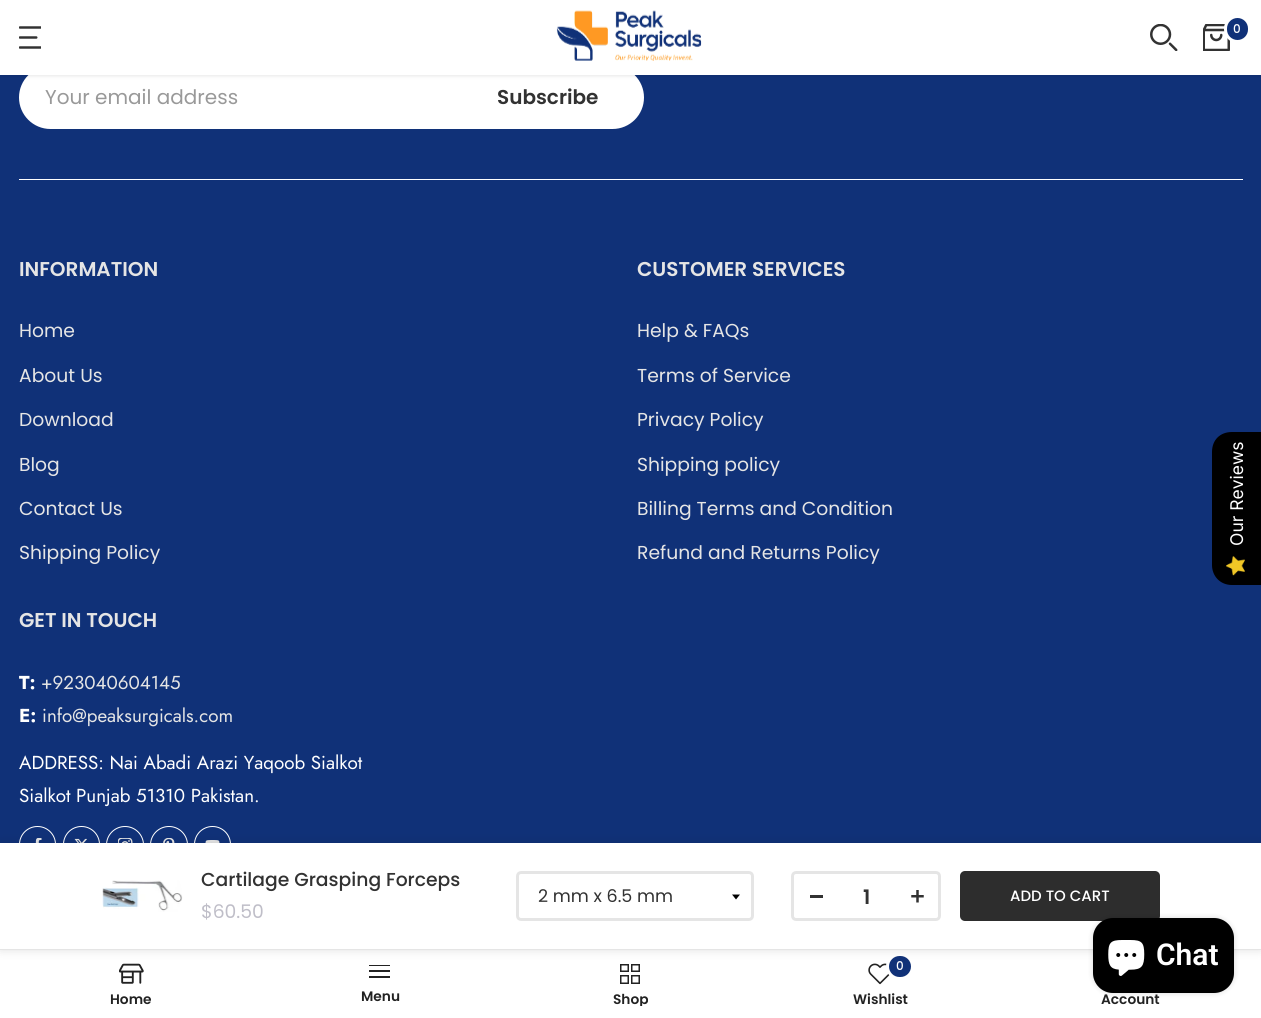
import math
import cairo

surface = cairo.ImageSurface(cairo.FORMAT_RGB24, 1261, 1018)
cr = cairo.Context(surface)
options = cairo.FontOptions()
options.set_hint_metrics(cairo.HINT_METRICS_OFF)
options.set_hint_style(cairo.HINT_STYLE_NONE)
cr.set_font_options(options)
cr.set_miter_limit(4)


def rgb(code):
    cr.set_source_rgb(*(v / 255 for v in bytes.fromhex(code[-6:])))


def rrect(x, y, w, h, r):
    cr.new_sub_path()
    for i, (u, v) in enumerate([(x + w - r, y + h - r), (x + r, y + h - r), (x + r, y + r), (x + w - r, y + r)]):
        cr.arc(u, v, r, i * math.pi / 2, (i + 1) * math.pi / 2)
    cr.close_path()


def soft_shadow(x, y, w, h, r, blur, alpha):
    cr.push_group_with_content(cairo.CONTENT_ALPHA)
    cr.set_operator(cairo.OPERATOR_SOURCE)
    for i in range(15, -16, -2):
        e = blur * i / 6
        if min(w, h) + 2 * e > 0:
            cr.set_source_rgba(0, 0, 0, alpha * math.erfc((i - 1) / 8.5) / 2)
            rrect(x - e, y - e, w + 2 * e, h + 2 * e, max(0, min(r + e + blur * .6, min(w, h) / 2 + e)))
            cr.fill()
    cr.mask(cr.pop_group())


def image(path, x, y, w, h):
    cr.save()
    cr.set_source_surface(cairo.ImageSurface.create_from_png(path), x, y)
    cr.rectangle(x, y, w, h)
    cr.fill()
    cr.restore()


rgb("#103178")
cr.paint()
rgb("#ffffff")
rrect(20.5, 67.5, 622, 60, 30)
cr.fill_preserve()
cr.set_line_width(3)
cr.stroke()
rgb("#000000")
soft_shadow(0, 1, 1261, 75, 0, 2, 0.1)
rgb("#ffffff")
cr.rectangle(0, 0, 1261, 75)
cr.fill()
image("img/1.png", 19, 26, 22, 23)
image("img/2.png", 556, 10, 146, 51)
image("img/3.png", 1150, 24, 28, 27)
image("img/4.png", 1203, 24, 27, 27)
rgb("#103178")
rrect(1225.5, 16.5, 24, 25, 12)
cr.fill_preserve()
rgb("#ffffff")
cr.stroke()
cr.rectangle(19, 179, 1224, 1)
cr.fill()
rrect(19.5, 826.5, 36, 37, 18)
cr.set_line_width(1)
cr.stroke()
image("img/5.png", 35, 838, 7, 5)
rrect(63.5, 826.5, 36, 37, 18)
cr.stroke()
image("img/6.png", 74, 838, 13, 5)
cr.arc(125, 845, 18.5, 0, 2 * math.pi)
cr.stroke()
image("img/7.png", 118, 838, 15, 5)
cr.arc(169, 845, 18.5, 0, 2 * math.pi)
cr.stroke()
image("img/8.png", 163, 838, 12, 5)
rrect(194.5, 826.5, 36, 37, 18)
cr.stroke()
image("img/9.png", 205, 840, 15, 3)
rgb("#000000")
cr.new_path()
cr.move_to(1212, 565)
cr.line_to(1212, 452)
cr.curve_to(1212, 440, 1220, 432, 1232, 432)
cr.line_to(1261, 432)
cr.line_to(1261, 585)
cr.line_to(1232, 585)
cr.curve_to(1220, 585, 1212, 576, 1212, 565)
cr.close_path()
cr.fill()
image("img/10.png", 1226, 556, 19, 20)
rgb("#ffffff")
cr.rectangle(0, 950, 1261, 68)
cr.fill()
image("img/14.png", 119, 963, 25, 21)
rgb("#222222")
cr.rectangle(369, 965, 21, 1)
cr.fill()
cr.rectangle(620.75, 964.75, 7.5, 6.5)
cr.set_line_width(1.5)
cr.stroke()
cr.rectangle(631.75, 964.75, 7.5, 6.5)
cr.stroke()
image("img/15.png", 868, 963, 22, 22)
rgb("#103178")
rrect(887.5, 954.5, 25, 24, 12)
cr.fill_preserve()
rgb("#ffffff")
cr.set_line_width(3)
cr.stroke()
rgb("#000000")
soft_shadow(0, 843, 1261, 107, 0, 5.5, 0.12)
rgb("#ffffff")
cr.rectangle(0, 843, 1261, 106)
cr.fill()
rgb("#e5e5e5")
cr.rectangle(0, 949, 1261, 1)
cr.fill()
image("img/11.png", 102, 880, 81, 32)
rrect(517.5, 872.5, 235, 47, 3.5)
cr.stroke()
rgb("#000000")
cr.new_path()
cr.move_to(732, 894.5)
cr.line_to(740, 894.5)
cr.line_to(736, 899.5)
cr.close_path()
cr.fill()
rrect(792.5, 872.5, 147, 47, 3.5)
rgb("#e5e5e5")
cr.stroke()
rgb("#323232")
cr.rectangle(810, 895, 13, 3)
cr.fill()
image("img/12.png", 911, 890, 13, 13)
rgb("#2d2d2d")
rrect(960, 871, 200, 50, 5)
cr.fill()
rgb("#000000")
soft_shadow(1093, 918, 141, 75, 20, 3, 0.15)
rgb("#000000")
rrect(1093, 918, 141, 75, 20)
cr.fill()
image("img/13.png", 1108, 940, 37, 36)
rgb("#222222")
cr.rectangle(369, 970, 21, 2)
cr.fill()
cr.rectangle(369, 976, 21, 2)
cr.fill()
cr.rectangle(620.75, 975.75, 7.5, 7.5)
cr.set_line_width(1.5)
cr.stroke()
cr.rectangle(631.75, 975.75, 7.5, 7.5)
cr.stroke()
cr.select_font_face("Poppins Medium")
cr.set_font_size(12)
rgb("#ffffff")
cr.move_to(1233, 33)
cr.show_text("0")
cr.select_font_face("Poppins")
cr.set_font_size(20)
rgb("#999999")
cr.move_to(45, 104)
cr.show_text("Your email address")
cr.select_font_face("Poppins SemiBold")
rgb("#323232")
cr.move_to(497, 104)
cr.show_text("Subscribe")
rgb("#e5e5e5")
cr.move_to(19, 276)
cr.show_text("INFORMATION")
cr.select_font_face("Poppins")
cr.set_font_size(18.75)
for x, y, s in [
    (19, 337, "Home"),
    (19, 382, "About Us"),
    (19, 426, "Download"),
    (19, 471, "Blog"),
    (19, 515, "Contact Us"),
    (19, 559, "Shipping Policy"),
]:
    cr.move_to(x, y)
    cr.show_text(s)
cr.select_font_face("Poppins SemiBold")
cr.set_font_size(20)
cr.move_to(637, 276)
cr.show_text("CUSTOMER SERVICES")
cr.select_font_face("Poppins")
cr.set_font_size(18.75)
for x, y, s in [
    (637, 337, "Help & FAQs"),
    (637, 382, "Terms of Service"),
    (637, 426, "Privacy Policy"),
    (637, 471, "Shipping policy"),
    (637, 515, "Billing Terms and Condition"),
    (637, 559, "Refund and Returns Policy"),
]:
    cr.move_to(x, y)
    cr.show_text(s)
cr.select_font_face("Poppins SemiBold")
cr.set_font_size(20)
cr.move_to(19, 627)
cr.show_text("GET IN TOUCH")
cr.select_font_face("Jost", cairo.FONT_SLANT_NORMAL, cairo.FONT_WEIGHT_BOLD)
cr.set_font_size(18.75)
rgb("#ffffff")
cr.move_to(19, 689)
cr.show_text("T:")
cr.select_font_face("Jost")
rgb("#e5e5e5")
cr.move_to(41, 689)
cr.show_text("+923040604145")
cr.select_font_face("Jost", cairo.FONT_SLANT_NORMAL, cairo.FONT_WEIGHT_BOLD)
rgb("#ffffff")
cr.move_to(19, 722)
cr.show_text("E:")
cr.select_font_face("Jost")
rgb("#e5e5e5")
cr.move_to(42, 722)
cr.show_text("info@peaksurgicals.com")
rgb("#ffffff")
cr.move_to(19, 769)
cr.show_text("ADDRESS: Nai Abadi Arazi Yaqoob Sialkot")
cr.move_to(19, 802)
cr.show_text("Sialkot Punjab 51310 Pakistan.")
cr.select_font_face("Inter")
cr.set_font_size(17.5)
cr.save()
cr.translate(1243, 546)
cr.rotate(-90 * math.pi / 180)
cr.move_to(0, 0)
cr.show_text("Our Reviews")
cr.restore()
cr.select_font_face("Poppins Medium")
cr.set_font_size(18.75)
rgb("#323232")
cr.move_to(201, 886)
cr.show_text("Cartilage Grasping Forceps")
cr.select_font_face("Poppins")
rgb("#bfbec8")
cr.move_to(201, 918)
cr.show_text("$60.50")
cr.set_font_size(17.5)
rgb("#323232")
cr.move_to(538, 902)
cr.show_text("2 mm x 6.5 mm")
cr.select_font_face("Poppins SemiBold")
cr.set_font_size(20)
cr.move_to(863, 904)
cr.show_text("1")
cr.select_font_face("Poppins Medium")
cr.set_font_size(15)
rgb("#ffffff")
cr.move_to(1010, 901)
cr.show_text("ADD TO CART")
cr.select_font_face("Roboto SemiBold")
cr.set_font_size(30)
cr.move_to(1156, 965)
cr.show_text("Chat")
cr.select_font_face("Poppins SemiBold")
cr.set_font_size(13.75)
rgb("#222222")
cr.move_to(110, 1004)
cr.show_text("Home")
cr.move_to(361, 1001)
cr.show_text("Menu")
cr.save()
cr.rectangle(519, 993, 224, 13)
cr.clip()
cr.move_to(613, 1004)
cr.show_text("Shop")
cr.restore()
cr.select_font_face("Poppins Medium")
cr.set_font_size(12)
rgb("#ffffff")
cr.move_to(896, 970)
cr.show_text("0")
cr.select_font_face("Poppins SemiBold")
cr.set_font_size(13.75)
rgb("#222222")
cr.move_to(853, 1004)
cr.show_text("Wishlist")
cr.move_to(1101, 1004)
cr.show_text("Account")
surface.write_to_png("page.png")
